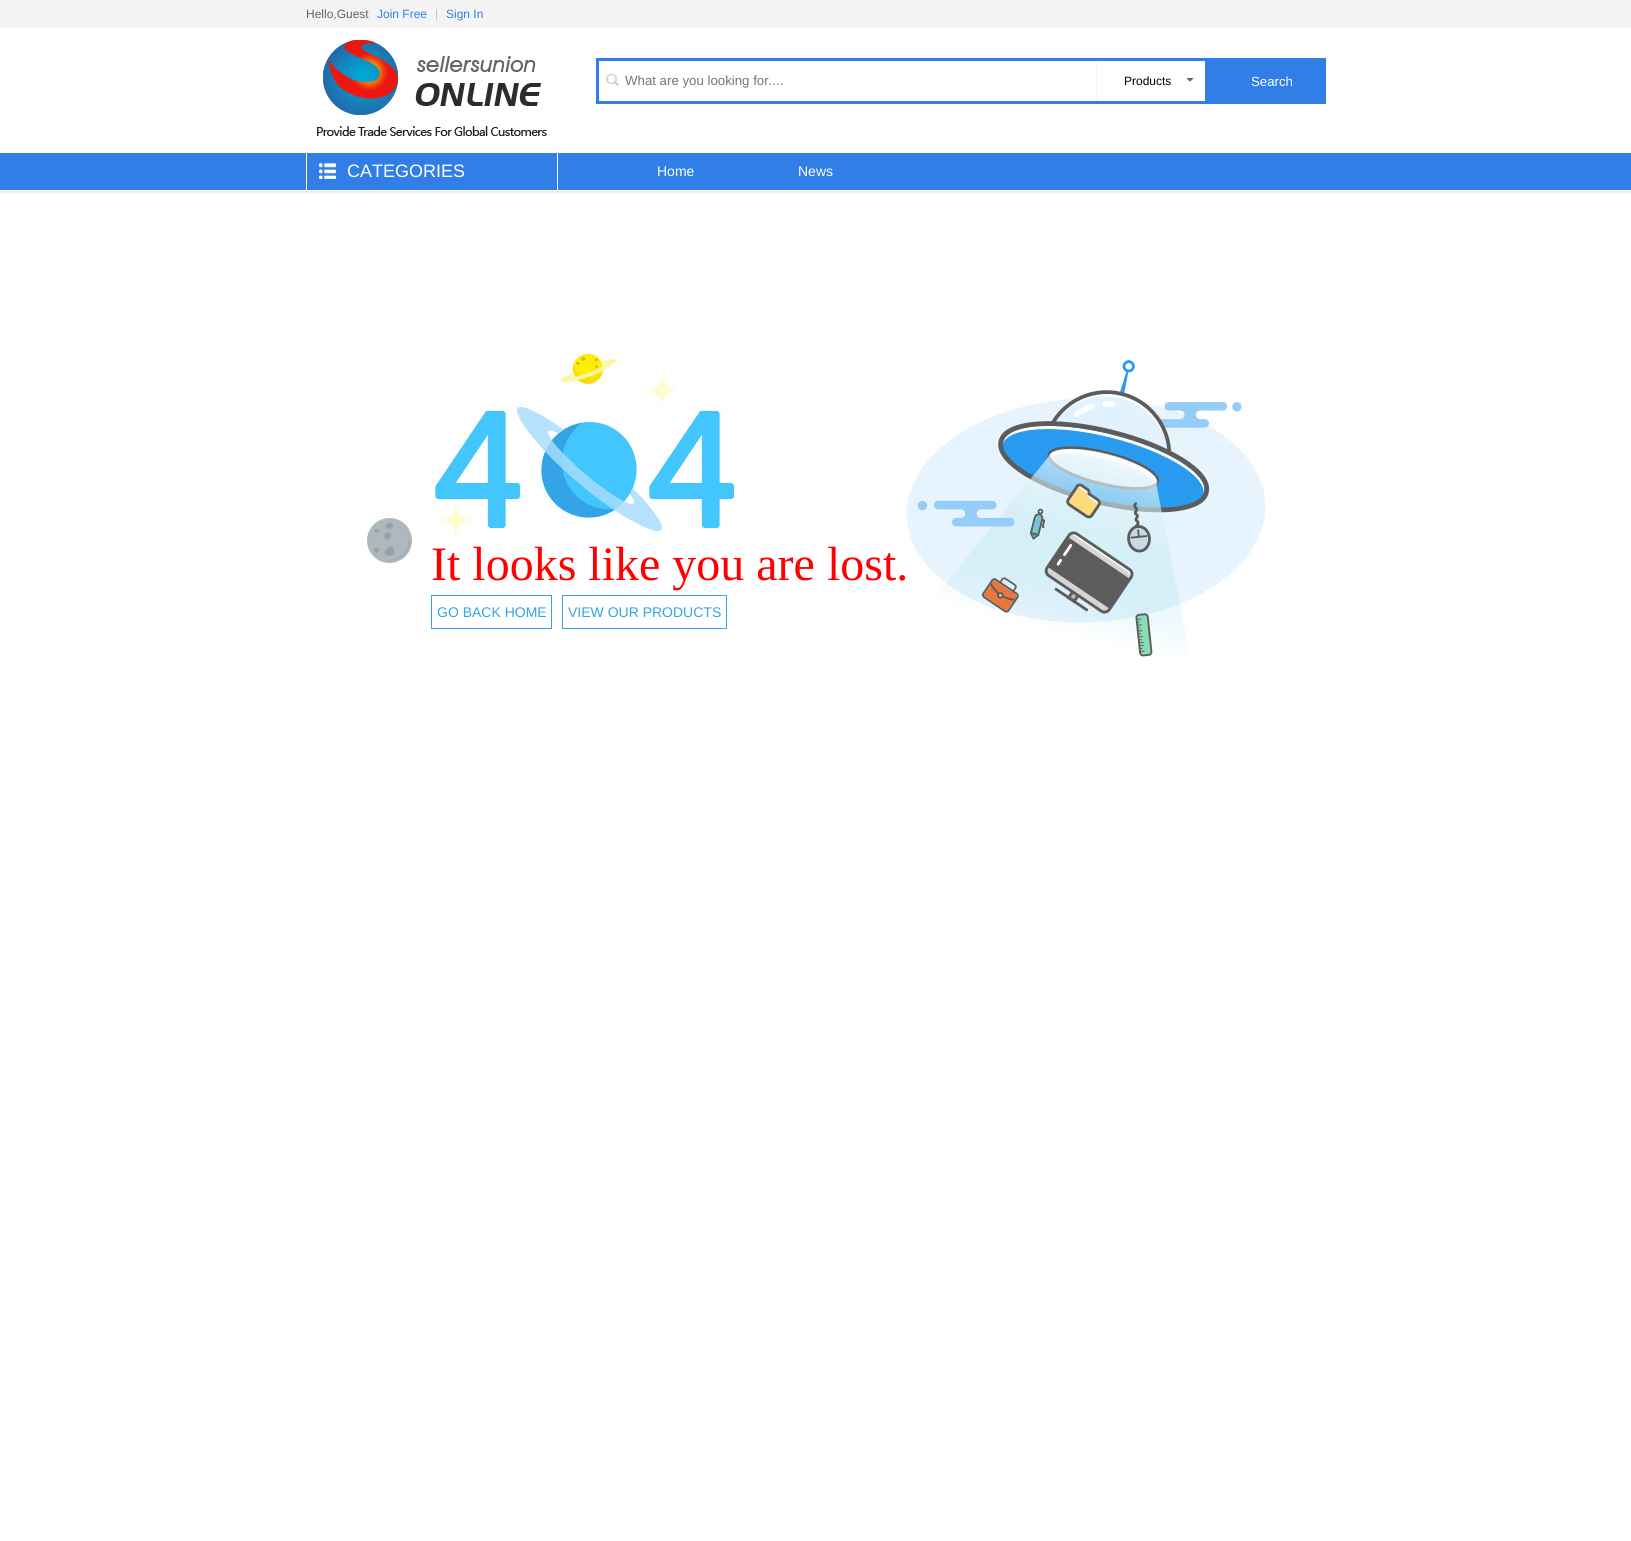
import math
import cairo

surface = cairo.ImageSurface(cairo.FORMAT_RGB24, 1631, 1541)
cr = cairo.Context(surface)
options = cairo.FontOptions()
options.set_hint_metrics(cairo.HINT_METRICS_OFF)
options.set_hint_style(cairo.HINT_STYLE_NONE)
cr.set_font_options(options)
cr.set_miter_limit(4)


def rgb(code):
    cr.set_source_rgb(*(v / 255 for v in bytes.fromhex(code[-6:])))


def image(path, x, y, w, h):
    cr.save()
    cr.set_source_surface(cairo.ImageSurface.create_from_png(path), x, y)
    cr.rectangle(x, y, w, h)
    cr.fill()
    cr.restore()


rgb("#ffffff")
cr.paint()
rgb("#f4f4f4")
cr.rectangle(0, 0, 1631, 28)
cr.fill()
image("img/1.png", 317, 39, 230, 97)
rgb("#317ee7")
cr.rectangle(596, 58, 730, 46)
cr.fill()
rgb("#ffffff")
cr.rectangle(599, 61, 606, 40)
cr.fill()
image("img/2.png", 606, 74, 14, 12)
rgb("#f3f3f3")
cr.rectangle(1096, 61, 1, 40)
cr.fill()
rgb("#666666")
cr.new_path()
cr.move_to(1186, 78)
cr.line_to(1194, 78)
cr.line_to(1190, 82)
cr.close_path()
cr.fill()
rgb("#ffffff")
cr.new_path()
cr.move_to(1194, 78)
cr.line_to(1194, 86)
cr.line_to(1190, 82)
cr.close_path()
cr.move_to(1186, 86)
cr.line_to(1186, 78)
cr.line_to(1190, 82)
cr.close_path()
cr.fill()
image("img/3.png", 0, 153, 1631, 41)
cr.rectangle(557, 153, 1, 37)
cr.fill()
cr.rectangle(306, 153, 1, 37)
cr.fill()
image("img/4.png", 319, 163, 17, 16)
image("img/5.png", 366, 353, 900, 304)
cr.rectangle(431.5, 595.5, 120, 33)
rgb("#33a4e6")
cr.set_line_width(1)
cr.stroke()
cr.rectangle(562.5, 595.5, 164, 33)
cr.stroke()
cr.select_font_face("Liberation Sans")
cr.set_font_size(12)
rgb("#626262")
cr.move_to(306, 18)
cr.show_text("Hello,Guest")
rgb("#317ee7")
cr.move_to(377, 18)
cr.show_text("Join Free")
rgb("#ccc3cc")
cr.move_to(435, 18)
cr.show_text("|")
rgb("#317ee7")
cr.move_to(446, 18)
cr.show_text("Sign In")
cr.set_font_size(13.25)
rgb("#757575")
cr.move_to(625, 85)
cr.show_text("What are you looking for....")
cr.set_font_size(12)
rgb("#000000")
cr.move_to(1124, 85)
cr.show_text("Products")
cr.set_font_size(13.25)
rgb("#ffffff")
cr.move_to(1251, 86)
cr.show_text("Search")
cr.set_font_size(18)
cr.move_to(347, 177)
cr.show_text("CATEGORIES")
cr.set_font_size(14)
cr.move_to(657, 176)
cr.show_text("Home")
cr.move_to(798, 176)
cr.show_text("News")
cr.select_font_face("Liberation Serif")
cr.set_font_size(48)
rgb("#ff0000")
cr.move_to(431, 580)
cr.show_text("It looks like you are lost.")
cr.select_font_face("Liberation Sans")
cr.set_font_size(14)
rgb("#33a4e6")
cr.move_to(437, 617)
cr.show_text("GO BACK HOME")
cr.move_to(568, 617)
cr.show_text("VIEW OUR PRODUCTS")
surface.write_to_png("page.png")
